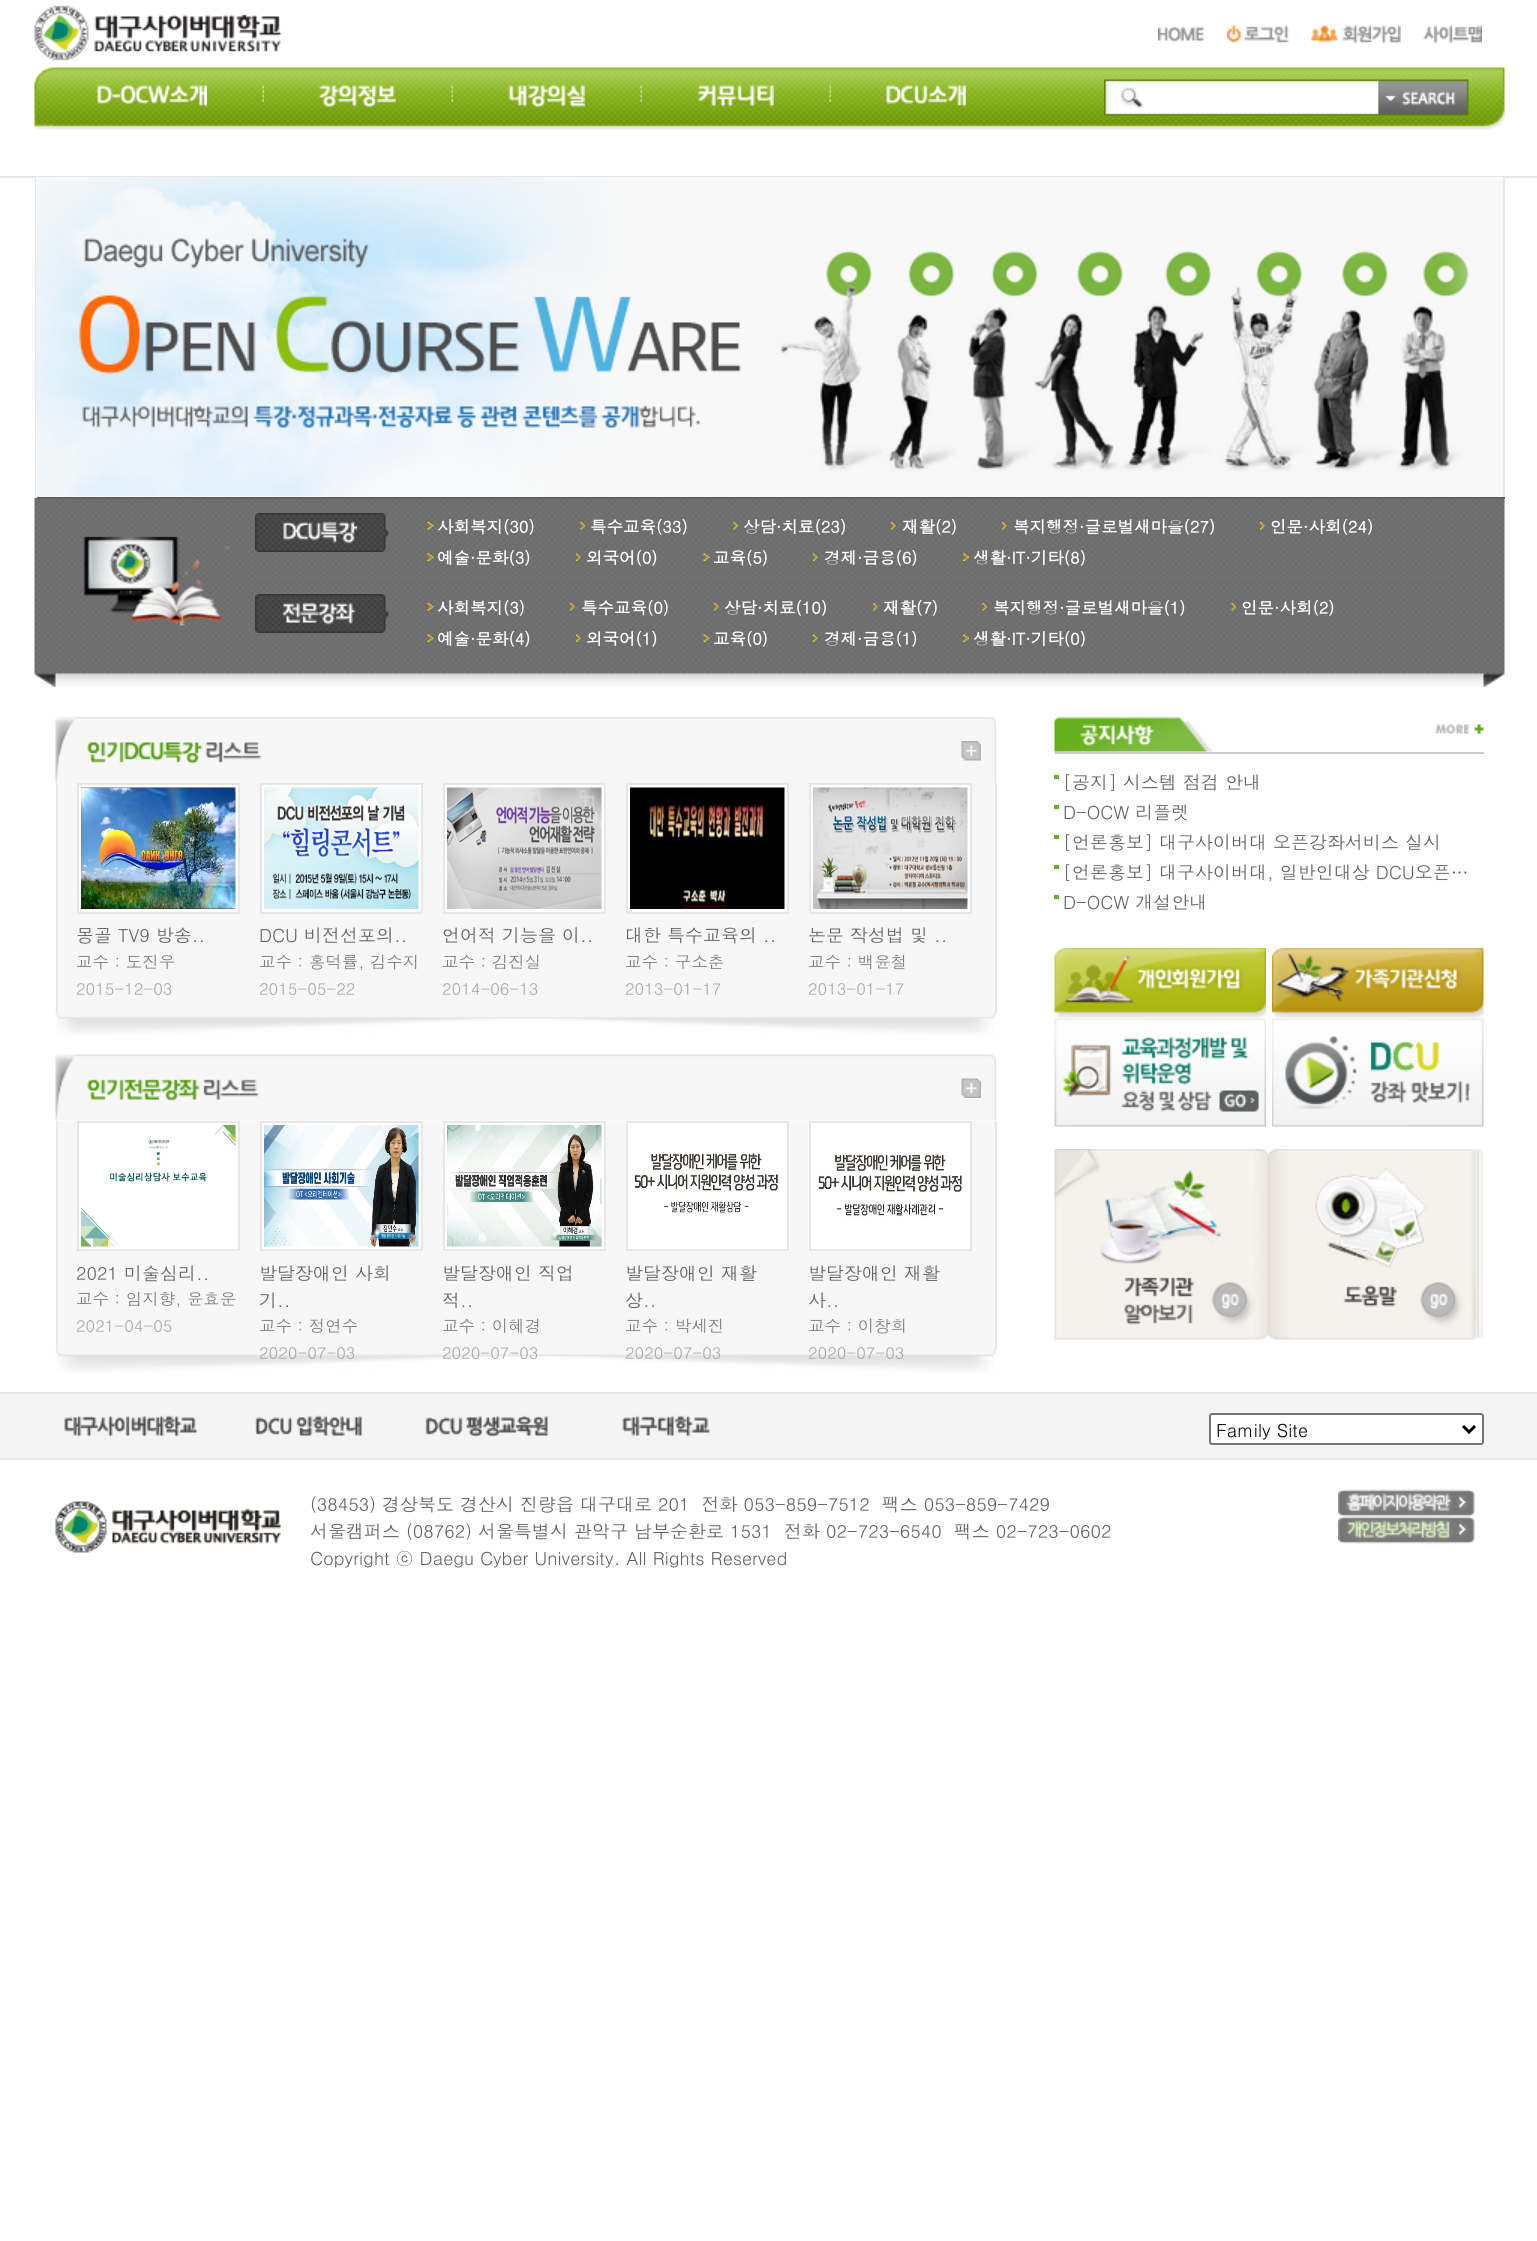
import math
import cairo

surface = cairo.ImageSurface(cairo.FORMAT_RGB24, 1537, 2241)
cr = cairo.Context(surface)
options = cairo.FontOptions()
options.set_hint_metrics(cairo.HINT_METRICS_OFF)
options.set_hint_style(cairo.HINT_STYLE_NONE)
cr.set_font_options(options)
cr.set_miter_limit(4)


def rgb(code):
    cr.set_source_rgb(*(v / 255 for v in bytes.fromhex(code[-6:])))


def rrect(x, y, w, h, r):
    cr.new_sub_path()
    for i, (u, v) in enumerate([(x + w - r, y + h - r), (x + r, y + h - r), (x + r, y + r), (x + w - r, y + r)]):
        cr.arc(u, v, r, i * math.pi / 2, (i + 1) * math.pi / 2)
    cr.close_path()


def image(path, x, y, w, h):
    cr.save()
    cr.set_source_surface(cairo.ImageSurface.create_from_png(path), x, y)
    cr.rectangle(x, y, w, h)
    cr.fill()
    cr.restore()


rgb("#ffffff")
cr.paint()
image("img/1.png", 34, 5, 247, 56)
image("img/2.png", 1158, 26, 47, 16)
image("img/3.png", 1227, 25, 62, 18)
image("img/4.png", 1311, 25, 90, 19)
image("img/5.png", 1423, 25, 59, 19)
image("img/6.png", 34, 67, 1471, 63)
image("img/7.png", 97, 85, 110, 22)
image("img/8.png", 262, 85, 2, 17)
image("img/9.png", 319, 85, 77, 22)
image("img/10.png", 451, 85, 2, 17)
image("img/11.png", 508, 85, 77, 22)
image("img/8.png", 640, 85, 2, 17)
image("img/12.png", 697, 85, 77, 22)
image("img/10.png", 829, 85, 2, 17)
image("img/13.png", 886, 85, 80, 22)
image("img/14.png", 1104, 79, 275, 37)
image("img/15.png", 1378, 79, 91, 37)
rgb("#e7e7e7")
cr.rectangle(0, 176, 1537, 2)
cr.fill()
cr.rectangle(1503, 177, 2, 321)
cr.fill()
image("img/17.png", 34, 498, 1471, 189)
rgb("#606060")
cr.rectangle(35, 497, 1470, 2)
cr.fill()
rgb("#e7e7e7")
cr.rectangle(35, 177, 2, 321)
cr.fill()
image("img/16.png", 36, 177, 1467, 320)
image("img/18.png", 255, 513, 135, 39)
image("img/19.png", 427, 522, 7, 8)
image("img/20.png", 580, 522, 5, 8)
image("img/21.png", 733, 522, 5, 8)
image("img/22.png", 891, 522, 5, 8)
image("img/23.png", 1002, 522, 5, 8)
image("img/24.png", 1260, 522, 5, 8)
image("img/25.png", 427, 553, 7, 8)
image("img/26.png", 576, 553, 5, 8)
image("img/25.png", 703, 553, 7, 8)
image("img/27.png", 813, 553, 5, 8)
image("img/28.png", 963, 553, 6, 8)
rgb("#717171")
cr.rectangle(255, 576, 1195, 3)
cr.fill()
image("img/29.png", 255, 594, 135, 39)
image("img/30.png", 427, 603, 7, 8)
image("img/31.png", 570, 603, 5, 8)
image("img/31.png", 714, 603, 5, 8)
image("img/23.png", 873, 603, 5, 8)
image("img/32.png", 982, 603, 5, 8)
image("img/33.png", 1231, 603, 5, 8)
image("img/34.png", 427, 634, 7, 8)
image("img/35.png", 576, 634, 5, 8)
image("img/34.png", 703, 634, 7, 8)
image("img/36.png", 813, 634, 5, 8)
image("img/37.png", 963, 634, 6, 8)
rgb("#cccccc")
cr.rectangle(1055, 752, 429, 2)
cr.fill()
image("img/38.png", 1054, 717, 158, 35)
image("img/39.png", 1435, 724, 49, 10)
for x, y, w, h, color in [
    (1054, 775, 5, 4, "#65b01d"),
    (1054, 805, 5, 4, "#65b01d"),
    (1054, 835, 5, 4, "#65b01d"),
    (1054, 865, 5, 4, "#65b01d"),
    (1054, 895, 5, 4, "#65b01d"),
]:
    rgb(color)
    cr.rectangle(x, y, w, h)
    cr.fill()
image("img/40.png", 1054, 948, 212, 71)
image("img/41.png", 1272, 948, 212, 71)
image("img/42.png", 1054, 1018, 212, 109)
image("img/43.png", 1272, 1018, 212, 109)
image("img/44.png", 1054, 1149, 214, 191)
image("img/45.png", 1267, 1149, 217, 191)
image("img/46.png", 55, 717, 941, 66)
image("img/47.png", 87, 742, 175, 22)
image("img/48.png", 961, 741, 20, 20)
for x, y, w, h, color in [
    (58, 783, 937, 230, "#f7f7f7"),
    (995, 783, 2, 230, "#e7e7e7"),
    (56, 783, 2, 230, "#e7e7e7"),
]:
    rgb(color)
    cr.rectangle(x, y, w, h)
    cr.fill()
rgb("#ffffff")
cr.rectangle(78, 784, 161, 129)
cr.fill_preserve()
rgb("#e7e7e7")
cr.stroke()
image("img/49.png", 81, 787, 155, 122)
rgb("#ffffff")
cr.rectangle(261, 784, 161, 129)
cr.fill_preserve()
rgb("#e7e7e7")
cr.stroke()
image("img/50.png", 264, 787, 155, 122)
rgb("#ffffff")
cr.rectangle(444, 784, 161, 129)
cr.fill_preserve()
rgb("#e7e7e7")
cr.stroke()
image("img/51.png", 447, 787, 155, 122)
rgb("#ffffff")
cr.rectangle(627, 784, 161, 129)
cr.fill_preserve()
rgb("#e7e7e7")
cr.stroke()
image("img/52.png", 630, 787, 155, 122)
rgb("#ffffff")
cr.rectangle(810, 784, 161, 129)
cr.fill_preserve()
rgb("#e7e7e7")
cr.stroke()
image("img/53.png", 813, 787, 155, 122)
image("img/54.png", 55, 1012, 941, 24)
image("img/55.png", 55, 1054, 941, 67)
image("img/56.png", 87, 1079, 172, 22)
image("img/57.png", 961, 1078, 20, 20)
for x, y, w, h, color in [
    (58, 1121, 937, 229, "#f7f7f7"),
    (995, 1121, 2, 229, "#e7e7e7"),
    (56, 1121, 2, 229, "#e7e7e7"),
]:
    rgb(color)
    cr.rectangle(x, y, w, h)
    cr.fill()
rgb("#ffffff")
cr.rectangle(78, 1122, 161, 128)
cr.fill_preserve()
rgb("#e7e7e7")
cr.stroke()
image("img/58.png", 81, 1125, 155, 122)
rgb("#ffffff")
cr.rectangle(261, 1122, 161, 128)
cr.fill_preserve()
rgb("#e7e7e7")
cr.stroke()
image("img/59.png", 264, 1125, 155, 122)
rgb("#ffffff")
cr.rectangle(444, 1122, 161, 128)
cr.fill_preserve()
rgb("#e7e7e7")
cr.stroke()
image("img/60.png", 447, 1125, 155, 122)
rgb("#ffffff")
cr.rectangle(627, 1122, 161, 128)
cr.fill_preserve()
rgb("#e7e7e7")
cr.stroke()
image("img/61.png", 634, 1153, 145, 61)
rgb("#ffffff")
cr.rectangle(810, 1122, 161, 128)
cr.fill_preserve()
rgb("#e7e7e7")
cr.stroke()
image("img/62.png", 818, 1154, 145, 63)
image("img/63.png", 55, 1350, 941, 23)
for x, y, w, h, color in [
    (0, 1394, 1537, 64, "#f4f4f4"),
    (0, 1392, 1537, 2, "#e7e7e7"),
    (0, 1458, 1537, 2, "#e7e7e7"),
]:
    rgb(color)
    cr.rectangle(x, y, w, h)
    cr.fill()
image("img/64.png", 64, 1415, 133, 22)
image("img/65.png", 255, 1415, 107, 21)
image("img/66.png", 425, 1415, 123, 22)
image("img/67.png", 622, 1415, 88, 22)
rgb("#ffffff")
rrect(1210, 1414, 273, 30, 2)
cr.fill_preserve()
rgb("#767676")
cr.stroke()
cr.new_path()
cr.move_to(1463, 1426)
cr.line_to(1469, 1432)
cr.line_to(1475, 1426)
rgb("#000000")
cr.set_line_width(3)
cr.stroke()
image("img/68.png", 55, 1501, 226, 52)
image("img/69.png", 1338, 1489, 137, 28)
image("img/70.png", 1338, 1516, 137, 28)
cr.select_font_face("Dotum", cairo.FONT_SLANT_NORMAL, cairo.FONT_WEIGHT_BOLD)
cr.set_font_size(16.5)
rgb("#ffffff")
for x, y, s in [
    (437, 533, "사회복지(30)"),
    (590, 533, "특수교육(33)"),
    (743, 533, "상담·치료(23)"),
    (902, 533, "재활(2)"),
    (1013, 533, "복지행정·글로벌새마을(27)"),
    (1270, 533, "인문·사회(24)"),
    (437, 564, "예술·문화(3)"),
    (586, 564, "외국어(0)"),
    (713, 564, "교육(5)"),
    (824, 564, "경제·금융(6)"),
    (973, 564, "생활·IT·기타(8)"),
    (437, 614, "사회복지(3)"),
    (581, 614, "특수교육(0)"),
    (724, 614, "상담·치료(10)"),
    (883, 614, "재활(7)"),
    (993, 614, "복지행정·글로벌새마을(1)"),
    (1241, 614, "인문·사회(2)"),
    (437, 645, "예술·문화(4)"),
    (586, 645, "외국어(1)"),
    (713, 645, "교육(0)"),
    (824, 645, "경제·금융(1)"),
    (973, 645, "생활·IT·기타(0)"),
]:
    cr.move_to(x, y)
    cr.show_text(s)
cr.select_font_face("Dotum")
cr.set_font_size(18)
rgb("#626262")
for x, y, s in [
    (1063, 789, "[공지] 시스템 점검 안내"),
    (1063, 819, "D-OCW 리플렛"),
    (1063, 849, "[언론홍보] 대구사이버대 오픈강좌서비스 실시"),
    (1063, 879, "[언론홍보] 대구사이버대, 일반인대상 DCU오픈…"),
    (1063, 909, "D-OCW 개설안내"),
    (76, 942, "몽골 TV9 방송.."),
]:
    cr.move_to(x, y)
    cr.show_text(s)
cr.set_font_size(16.5)
rgb("#7e7e7e")
cr.move_to(76, 968)
cr.show_text("교수 : 도진우")
rgb("#a7a7a7")
cr.move_to(76, 995)
cr.show_text("2015-12-03")
cr.set_font_size(18)
rgb("#626262")
cr.move_to(259, 942)
cr.show_text("DCU 비전선포의..")
cr.set_font_size(16.5)
rgb("#7e7e7e")
cr.move_to(259, 968)
cr.show_text("교수 : 홍덕률, 김수지")
rgb("#a7a7a7")
cr.move_to(259, 995)
cr.show_text("2015-05-22")
cr.set_font_size(18)
rgb("#626262")
cr.move_to(442, 942)
cr.show_text("언어적 기능을 이..")
cr.set_font_size(16.5)
rgb("#7e7e7e")
cr.move_to(442, 968)
cr.show_text("교수 : 김진실")
rgb("#a7a7a7")
cr.move_to(442, 995)
cr.show_text("2014-06-13")
cr.set_font_size(18)
rgb("#626262")
cr.move_to(625, 942)
cr.show_text("대한 특수교육의 ..")
cr.set_font_size(16.5)
rgb("#7e7e7e")
cr.move_to(625, 968)
cr.show_text("교수 : 구소춘")
rgb("#a7a7a7")
cr.move_to(625, 995)
cr.show_text("2013-01-17")
cr.set_font_size(18)
rgb("#626262")
cr.move_to(808, 942)
cr.show_text("논문 작성법 및 ..")
cr.set_font_size(16.5)
rgb("#7e7e7e")
cr.move_to(808, 968)
cr.show_text("교수 : 백윤철")
rgb("#a7a7a7")
cr.move_to(808, 995)
cr.show_text("2013-01-17")
cr.set_font_size(18)
rgb("#626262")
cr.move_to(76, 1280)
cr.show_text("2021 미술심리..")
cr.set_font_size(16.5)
rgb("#7e7e7e")
cr.move_to(76, 1305)
cr.show_text("교수 : 임지향, 윤효운")
rgb("#a7a7a7")
cr.move_to(76, 1332)
cr.show_text("2021-04-05")
cr.set_font_size(18)
rgb("#626262")
cr.move_to(259, 1280)
cr.show_text("발달장애인 사회")
cr.move_to(259, 1307)
cr.show_text("기..")
cr.set_font_size(16.5)
rgb("#7e7e7e")
cr.move_to(259, 1332)
cr.show_text("교수 : 정연수")
rgb("#a7a7a7")
cr.move_to(259, 1359)
cr.show_text("2020-07-03")
cr.set_font_size(18)
rgb("#626262")
cr.move_to(442, 1280)
cr.show_text("발달장애인 직업")
cr.move_to(442, 1307)
cr.show_text("적..")
cr.set_font_size(16.5)
rgb("#7e7e7e")
cr.move_to(442, 1332)
cr.show_text("교수 : 이혜경")
rgb("#a7a7a7")
cr.move_to(442, 1359)
cr.show_text("2020-07-03")
cr.set_font_size(18)
rgb("#626262")
cr.move_to(625, 1280)
cr.show_text("발달장애인 재활")
cr.move_to(625, 1307)
cr.show_text("상..")
cr.set_font_size(16.5)
rgb("#7e7e7e")
cr.move_to(625, 1332)
cr.show_text("교수 : 박세진")
rgb("#a7a7a7")
cr.move_to(625, 1359)
cr.show_text("2020-07-03")
cr.set_font_size(18)
rgb("#626262")
cr.move_to(808, 1280)
cr.show_text("발달장애인 재활")
cr.move_to(808, 1307)
cr.show_text("사..")
cr.set_font_size(16.5)
rgb("#7e7e7e")
cr.move_to(808, 1332)
cr.show_text("교수 : 이창희")
rgb("#a7a7a7")
cr.move_to(808, 1359)
cr.show_text("2020-07-03")
cr.set_font_size(18)
rgb("#000000")
cr.move_to(1216, 1437)
cr.show_text("Family Site")
rgb("#626262")
for x, y, s in [
    (310, 1511, "(38453) 경상북도 경산시 진량읍 대구대로 201  전화 053-859-7512  팩스 053-859-7429"),
    (310, 1538, "서울캠퍼스 (08762) 서울특별시 관악구 남부순환로 1531  전화 02-723-6540  팩스 02-723-0602"),
    (310, 1565, "Copyright ⓒ Daegu Cyber University. All Rights Reserved"),
]:
    cr.move_to(x, y)
    cr.show_text(s)
surface.write_to_png("page.png")
